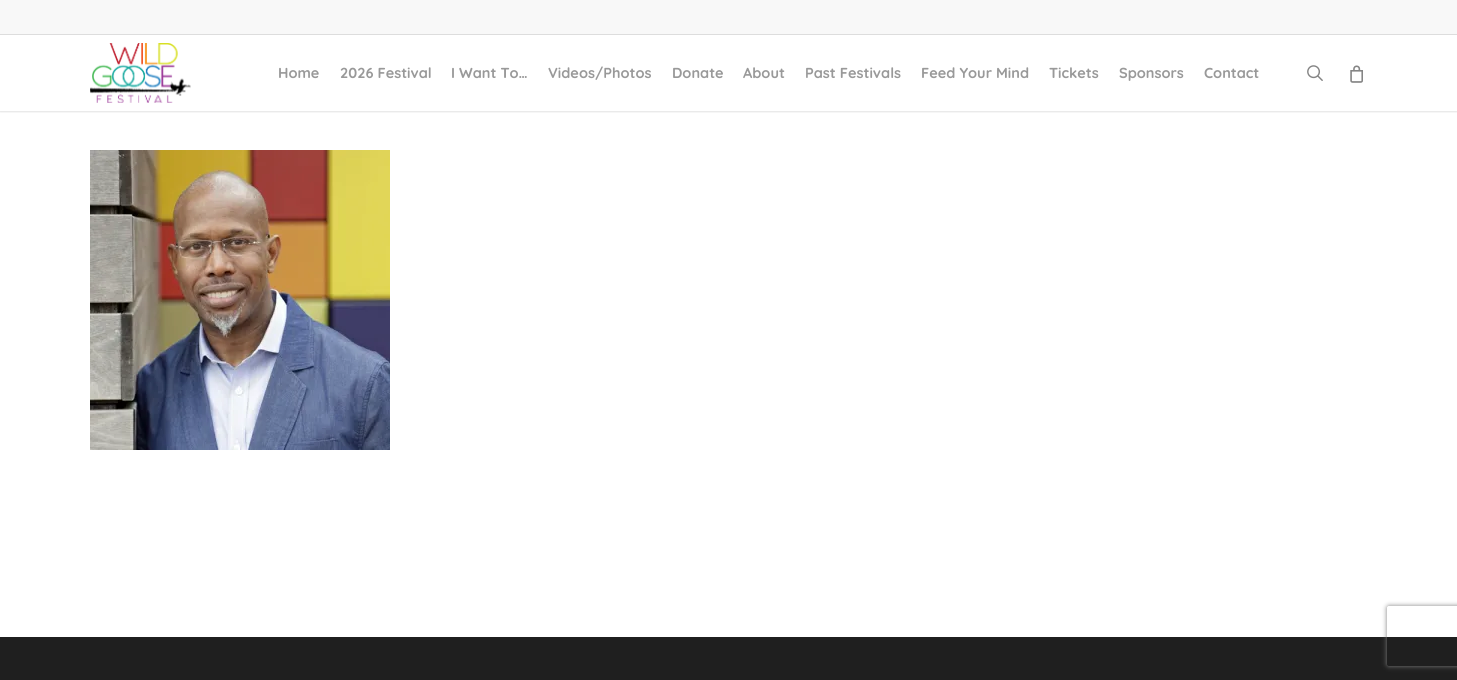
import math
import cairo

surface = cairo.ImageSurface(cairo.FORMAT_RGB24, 1457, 680)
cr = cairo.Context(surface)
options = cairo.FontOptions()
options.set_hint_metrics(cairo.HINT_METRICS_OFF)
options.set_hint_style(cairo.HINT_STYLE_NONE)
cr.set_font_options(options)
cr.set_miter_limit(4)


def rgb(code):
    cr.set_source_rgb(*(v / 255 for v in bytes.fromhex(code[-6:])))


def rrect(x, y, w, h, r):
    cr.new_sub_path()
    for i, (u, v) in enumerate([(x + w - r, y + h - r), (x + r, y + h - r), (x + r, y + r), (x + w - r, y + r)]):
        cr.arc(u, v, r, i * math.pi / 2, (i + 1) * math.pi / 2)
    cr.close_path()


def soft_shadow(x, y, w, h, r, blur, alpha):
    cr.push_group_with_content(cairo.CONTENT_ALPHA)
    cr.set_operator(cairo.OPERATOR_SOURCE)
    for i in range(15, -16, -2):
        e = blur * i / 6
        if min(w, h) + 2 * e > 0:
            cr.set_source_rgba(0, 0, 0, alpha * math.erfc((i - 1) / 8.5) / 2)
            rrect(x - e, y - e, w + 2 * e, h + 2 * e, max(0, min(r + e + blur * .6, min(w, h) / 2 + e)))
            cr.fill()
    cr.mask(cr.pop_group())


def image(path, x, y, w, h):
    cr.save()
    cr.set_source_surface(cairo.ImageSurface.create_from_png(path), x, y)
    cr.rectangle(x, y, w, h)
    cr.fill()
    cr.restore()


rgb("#ffffff")
cr.paint()
cr.save()
cr.rectangle(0, 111, 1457, 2)
cr.clip()
rgb("#000000")
soft_shadow(0, 0, 1457, 111, 0, 1.5, 0.22)
cr.restore()
rgb("#f8f8f8")
cr.rectangle(0, 0, 1457, 34)
cr.fill()
rgb("#dddddd")
cr.rectangle(0, 34, 1457, 1)
cr.fill()
image("img/1.png", 90, 43, 101, 60)
image("img/2.png", 1307, 65, 16, 16)
image("img/3.png", 1350, 65, 13, 18)
image("img/4.png", 90, 150, 300, 300)
rgb("#1f1f1f")
cr.rectangle(0, 637, 1457, 43)
cr.fill()
cr.save()
cr.set_fill_rule(cairo.FILL_RULE_EVEN_ODD)
cr.new_path()
cr.move_to(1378, 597)
cr.line_to(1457, 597)
cr.line_to(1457, 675)
cr.line_to(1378, 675)
cr.close_path()
cr.move_to(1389, 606)
cr.line_to(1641, 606)
cr.curve_to(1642, 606, 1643, 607, 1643, 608)
cr.line_to(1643, 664)
cr.curve_to(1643, 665, 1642, 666, 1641, 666)
cr.line_to(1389, 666)
cr.curve_to(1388, 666, 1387, 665, 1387, 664)
cr.line_to(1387, 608)
cr.curve_to(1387, 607, 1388, 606, 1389, 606)
cr.close_path()
cr.clip()
rgb("#808080")
soft_shadow(1387, 606, 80, 60, 2, 2.5, 1)
cr.restore()
cr.select_font_face("Quicksand Light")
cr.set_font_size(14.5)
rgb("#999999")
for x, y, s in [
    (278, 78, "Home"),
    (340, 78, "2026 Festival"),
    (451, 78, "I Want To…"),
    (548, 78, "Videos/Photos"),
    (672, 78, "Donate"),
    (743, 78, "About"),
    (805, 78, "Past Festivals"),
    (921, 78, "Feed Your Mind"),
    (1049, 78, "Tickets"),
    (1119, 78, "Sponsors"),
    (1204, 78, "Contact"),
]:
    cr.move_to(x, y)
    cr.show_text(s)
surface.write_to_png("page.png")
